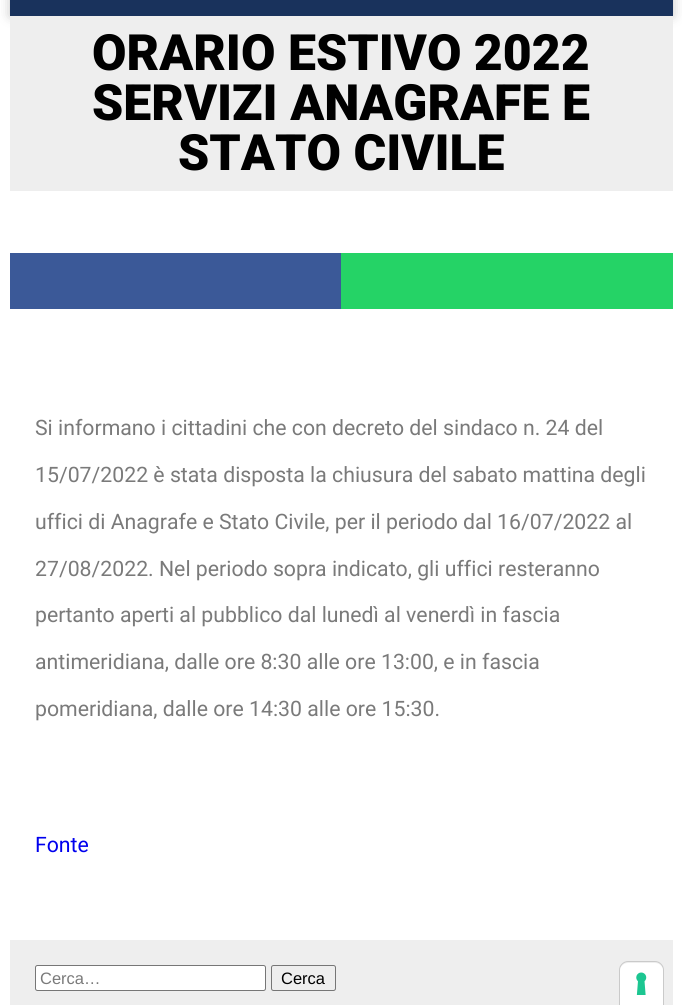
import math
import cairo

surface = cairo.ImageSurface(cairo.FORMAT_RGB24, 682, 1005)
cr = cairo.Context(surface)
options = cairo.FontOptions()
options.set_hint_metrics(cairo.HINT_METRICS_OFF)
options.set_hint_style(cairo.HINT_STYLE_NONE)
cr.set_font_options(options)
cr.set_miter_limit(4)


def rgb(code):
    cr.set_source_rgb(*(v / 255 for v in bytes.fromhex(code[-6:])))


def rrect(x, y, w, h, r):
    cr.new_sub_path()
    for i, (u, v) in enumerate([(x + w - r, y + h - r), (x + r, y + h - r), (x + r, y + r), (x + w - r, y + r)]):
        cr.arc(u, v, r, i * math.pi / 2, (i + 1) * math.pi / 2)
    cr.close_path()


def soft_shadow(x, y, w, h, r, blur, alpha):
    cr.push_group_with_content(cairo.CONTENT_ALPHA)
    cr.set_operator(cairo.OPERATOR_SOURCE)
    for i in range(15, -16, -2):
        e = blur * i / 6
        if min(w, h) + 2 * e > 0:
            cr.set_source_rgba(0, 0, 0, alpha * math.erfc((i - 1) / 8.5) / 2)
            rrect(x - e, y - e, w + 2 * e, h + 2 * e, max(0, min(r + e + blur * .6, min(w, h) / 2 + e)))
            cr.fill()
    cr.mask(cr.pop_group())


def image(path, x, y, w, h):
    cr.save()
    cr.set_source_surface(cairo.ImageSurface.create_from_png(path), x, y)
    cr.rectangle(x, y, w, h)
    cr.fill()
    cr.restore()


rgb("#ffffff")
cr.paint()
rgb("#000000")
soft_shadow(10, -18, 663, 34, 0, 6, 0.22)
for x, y, w, h, color in [
    (10, 0, 663, 16, "#19325c"),
    (10, 16, 663, 175, "#eeeeee"),
    (10, 253, 331, 56, "#3b5998"),
    (341, 253, 332, 56, "#25d366"),
    (10, 940, 663, 65, "#eeeeee"),
]:
    rgb(color)
    cr.rectangle(x, y, w, h)
    cr.fill()
rgb("#ffffff")
rrect(35.5, 965.5, 230, 25, 2)
cr.fill_preserve()
rgb("#767676")
cr.set_line_width(1)
cr.stroke()
rrect(271.5, 965.5, 64, 25, 2)
cr.stroke()
cr.new_path()
cr.move_to(628, 961.5)
cr.line_to(655, 961.5)
cr.curve_to(659.5, 961.5, 663.5, 965.5, 663.5, 970)
cr.line_to(663.5, 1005.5)
cr.line_to(619.5, 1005.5)
cr.line_to(619.5, 970)
cr.curve_to(619.5, 965.5, 623.5, 961.5, 628, 961.5)
cr.close_path()
rgb("#cacaca")
cr.stroke()
rgb("#ffffff")
cr.new_path()
cr.move_to(628, 963)
cr.line_to(655, 963)
cr.curve_to(659.5, 963, 663, 966.5, 663, 971)
cr.line_to(663, 1005)
cr.line_to(620, 1005)
cr.line_to(620, 971)
cr.curve_to(620, 966.5, 623.5, 963, 628, 963)
cr.close_path()
cr.fill()
image("img/1.png", 636, 972, 11, 23)
cr.select_font_face("Roboto Black")
cr.set_font_size(50)
rgb("#000000")
for x, y, s in [
    (92, 70, "ORARIO ESTIVO 2022"),
    (92, 120, "SERVIZI ANAGRAFE E"),
    (178, 170, "STATO CIVILE"),
]:
    cr.move_to(x, y)
    cr.show_text(s)
cr.select_font_face("Roboto")
cr.set_font_size(21.25)
rgb("#7a7a7a")
for x, y, s in [
    (35, 435, "Si informano i cittadini che con decreto del sindaco n. 24 del"),
    (35, 482, "15/07/2022 è stata disposta la chiusura del sabato mattina degli"),
    (35, 529, "uffici di Anagrafe e Stato Civile, per il periodo dal 16/07/2022 al"),
    (35, 576, "27/08/2022. Nel periodo sopra indicato, gli uffici resteranno"),
    (35, 622, "pertanto aperti al pubblico dal lunedì al venerdì in fascia"),
    (35, 669, "antimeridiana, dalle ore 8:30 alle ore 13:00, e in fascia"),
    (35, 716, "pomeridiana, dalle ore 14:30 alle ore 15:30."),
]:
    cr.move_to(x, y)
    cr.show_text(s)
rgb("#0000ee")
cr.move_to(35, 852)
cr.show_text("Fonte")
cr.select_font_face("Liberation Sans")
cr.set_font_size(16.5)
rgb("#7a7a7a")
cr.move_to(40, 984)
cr.show_text("Cerca…")
rgb("#000000")
cr.move_to(281, 984)
cr.show_text("Cerca")
surface.write_to_png("page.png")
